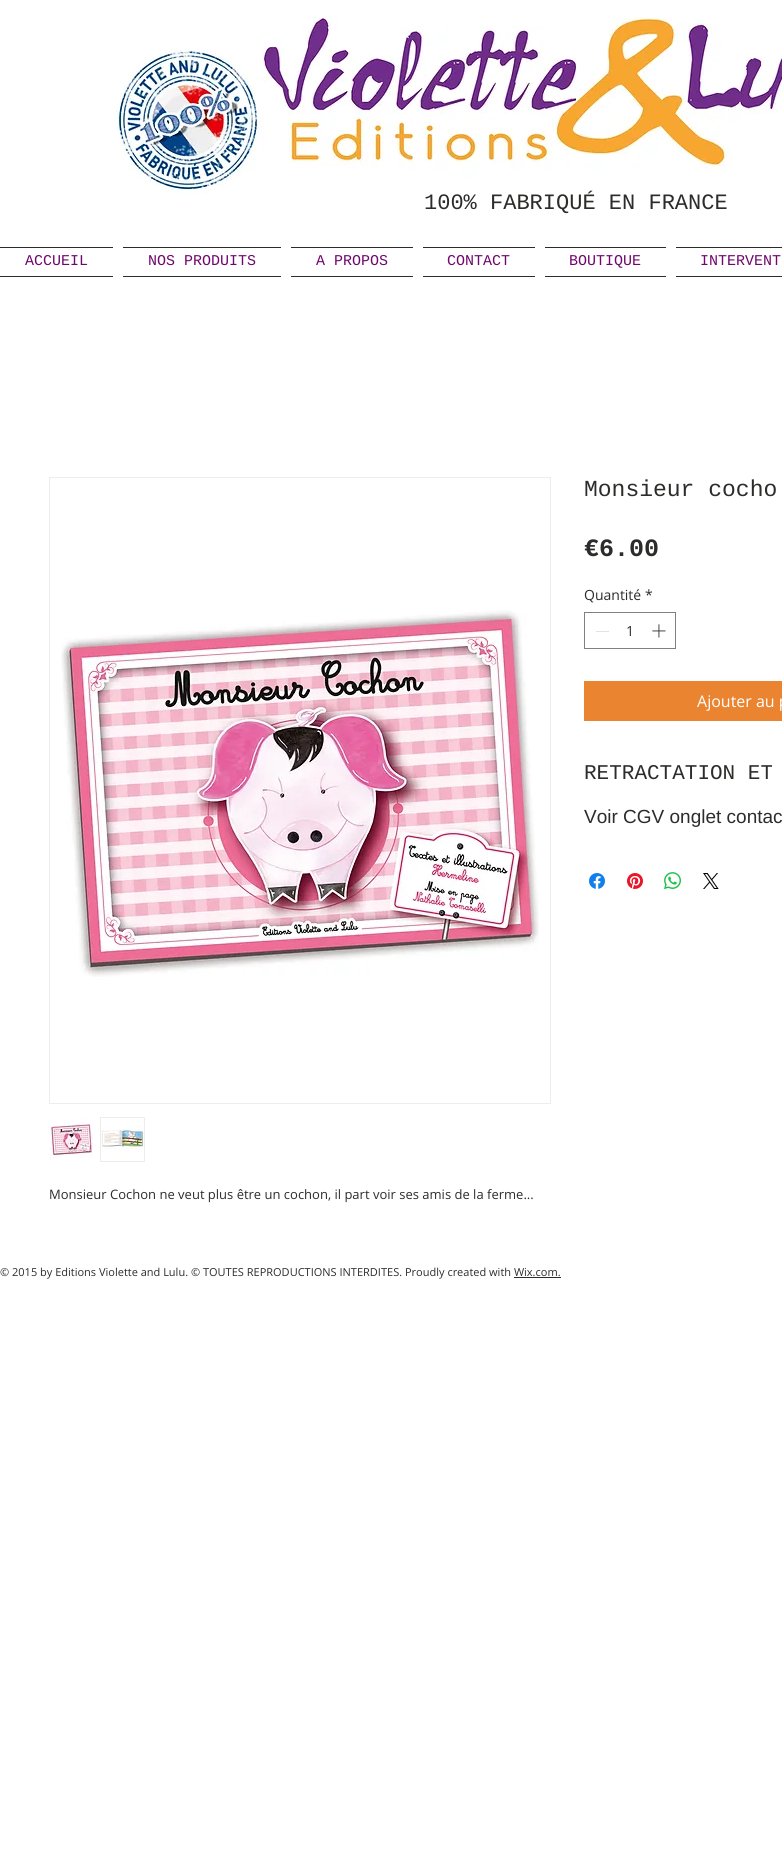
import math
import cairo

surface = cairo.ImageSurface(cairo.FORMAT_RGB24, 782, 1858)
cr = cairo.Context(surface)
options = cairo.FontOptions()
options.set_hint_metrics(cairo.HINT_METRICS_OFF)
options.set_hint_style(cairo.HINT_STYLE_NONE)
cr.set_font_options(options)
cr.set_miter_limit(4)


def rgb(code):
    cr.set_source_rgb(*(v / 255 for v in bytes.fromhex(code[-6:])))


def image(path, x, y, w, h):
    cr.save()
    cr.set_source_surface(cairo.ImageSurface.create_from_png(path), x, y)
    cr.rectangle(x, y, w, h)
    cr.fill()
    cr.restore()


rgb("#ffffff")
cr.paint()
image("img/1.png", 116, 17, 666, 177)
for x, y, w, h, color in [
    (0, 247, 113, 1, "#2c2c2b"),
    (0, 276, 113, 1, "#2c2c2b"),
    (123, 247, 158, 1, "#2c2c2b"),
    (123, 276, 158, 1, "#2c2c2b"),
    (291, 247, 122, 1, "#2c2c2b"),
    (291, 276, 122, 1, "#2c2c2b"),
    (423, 247, 112, 1, "#2c2c2b"),
    (423, 276, 112, 1, "#2c2c2b"),
    (545, 247, 121, 1, "#2c2c2b"),
    (545, 276, 121, 1, "#2c2c2b"),
    (676, 247, 106, 1, "#2c2c2b"),
    (676, 276, 106, 1, "#2c2c2b"),
]:
    rgb(color)
    cr.rectangle(x, y, w, h)
    cr.fill()
cr.rectangle(584.5, 612.5, 91, 36)
rgb("#808080")
cr.set_line_width(1)
cr.stroke()
rgb("#e3e3e3")
cr.rectangle(596, 631, 13, 1)
cr.fill()
image("img/2.png", 652, 624, 14, 14)
rgb("#ea8431")
cr.rectangle(584, 681, 198, 40)
cr.fill()
image("img/3.png", 589, 873, 16, 16)
image("img/4.png", 627, 873, 16, 16)
image("img/5.png", 664, 872, 17, 17)
image("img/6.png", 703, 873, 16, 16)
cr.rectangle(49.5, 477.5, 501, 626)
rgb("#ededec")
cr.stroke()
image("img/7.png", 61, 610, 478, 367)
image("img/8.png", 50, 1118, 43, 43)
cr.rectangle(100, 1117, 45, 45)
cr.fill()
image("img/9.png", 101, 1118, 43, 43)
rgb("#2c2c2b")
cr.rectangle(514, 1277, 47, 1)
cr.fill()
cr.select_font_face("Liberation Mono")
cr.set_font_size(22)
cr.move_to(424, 209)
cr.show_text("100% FABRIQUÉ EN FRANCE")
cr.set_font_size(15)
rgb("#70076d")
for x, y, s in [
    (25, 265, "ACCUEIL"),
    (148, 265, "NOS PRODUITS"),
    (316, 265, "A PROPOS"),
    (447, 265, "CONTACT"),
    (569, 265, "BOUTIQUE"),
    (700, 265, "INTERVENT"),
]:
    cr.move_to(x, y)
    cr.show_text(s)
cr.set_font_size(23)
rgb("#2c2c2b")
cr.move_to(584, 496)
cr.show_text("Monsieur cocho")
cr.select_font_face("Liberation Mono", cairo.FONT_SLANT_NORMAL, cairo.FONT_WEIGHT_BOLD)
cr.set_font_size(25)
cr.move_to(584, 556)
cr.show_text("€6.00")
cr.select_font_face("Open Sans")
cr.set_font_size(14)
for x, y, s in [
    (584, 600, "Quantité"),
    (645, 600, "*"),
    (626, 636, "1"),
]:
    cr.move_to(x, y)
    cr.show_text(s)
cr.set_font_size(16)
rgb("#ffffff")
cr.move_to(697, 707)
cr.show_text("Ajouter au p")
cr.select_font_face("Liberation Mono")
cr.set_font_size(21)
rgb("#2c2c2b")
cr.move_to(584, 779)
cr.show_text("RETRACTATION ET")
cr.select_font_face("Liberation Sans")
cr.set_font_size(19)
cr.move_to(584, 823)
cr.show_text("Voir CGV onglet contac")
cr.select_font_face("Open Sans")
cr.set_font_size(13)
cr.move_to(49, 1199)
cr.show_text("Monsieur Cochon ne veut plus être un cochon, il part voir ses amis de la ferme...")
cr.set_font_size(11)
cr.move_to(0, 1276)
cr.show_text("© 2015 by Editions Violette and Lulu. © TOUTES REPRODUCTIONS INTERDITES. Proudly created with Wix.com.")
surface.write_to_png("page.png")
